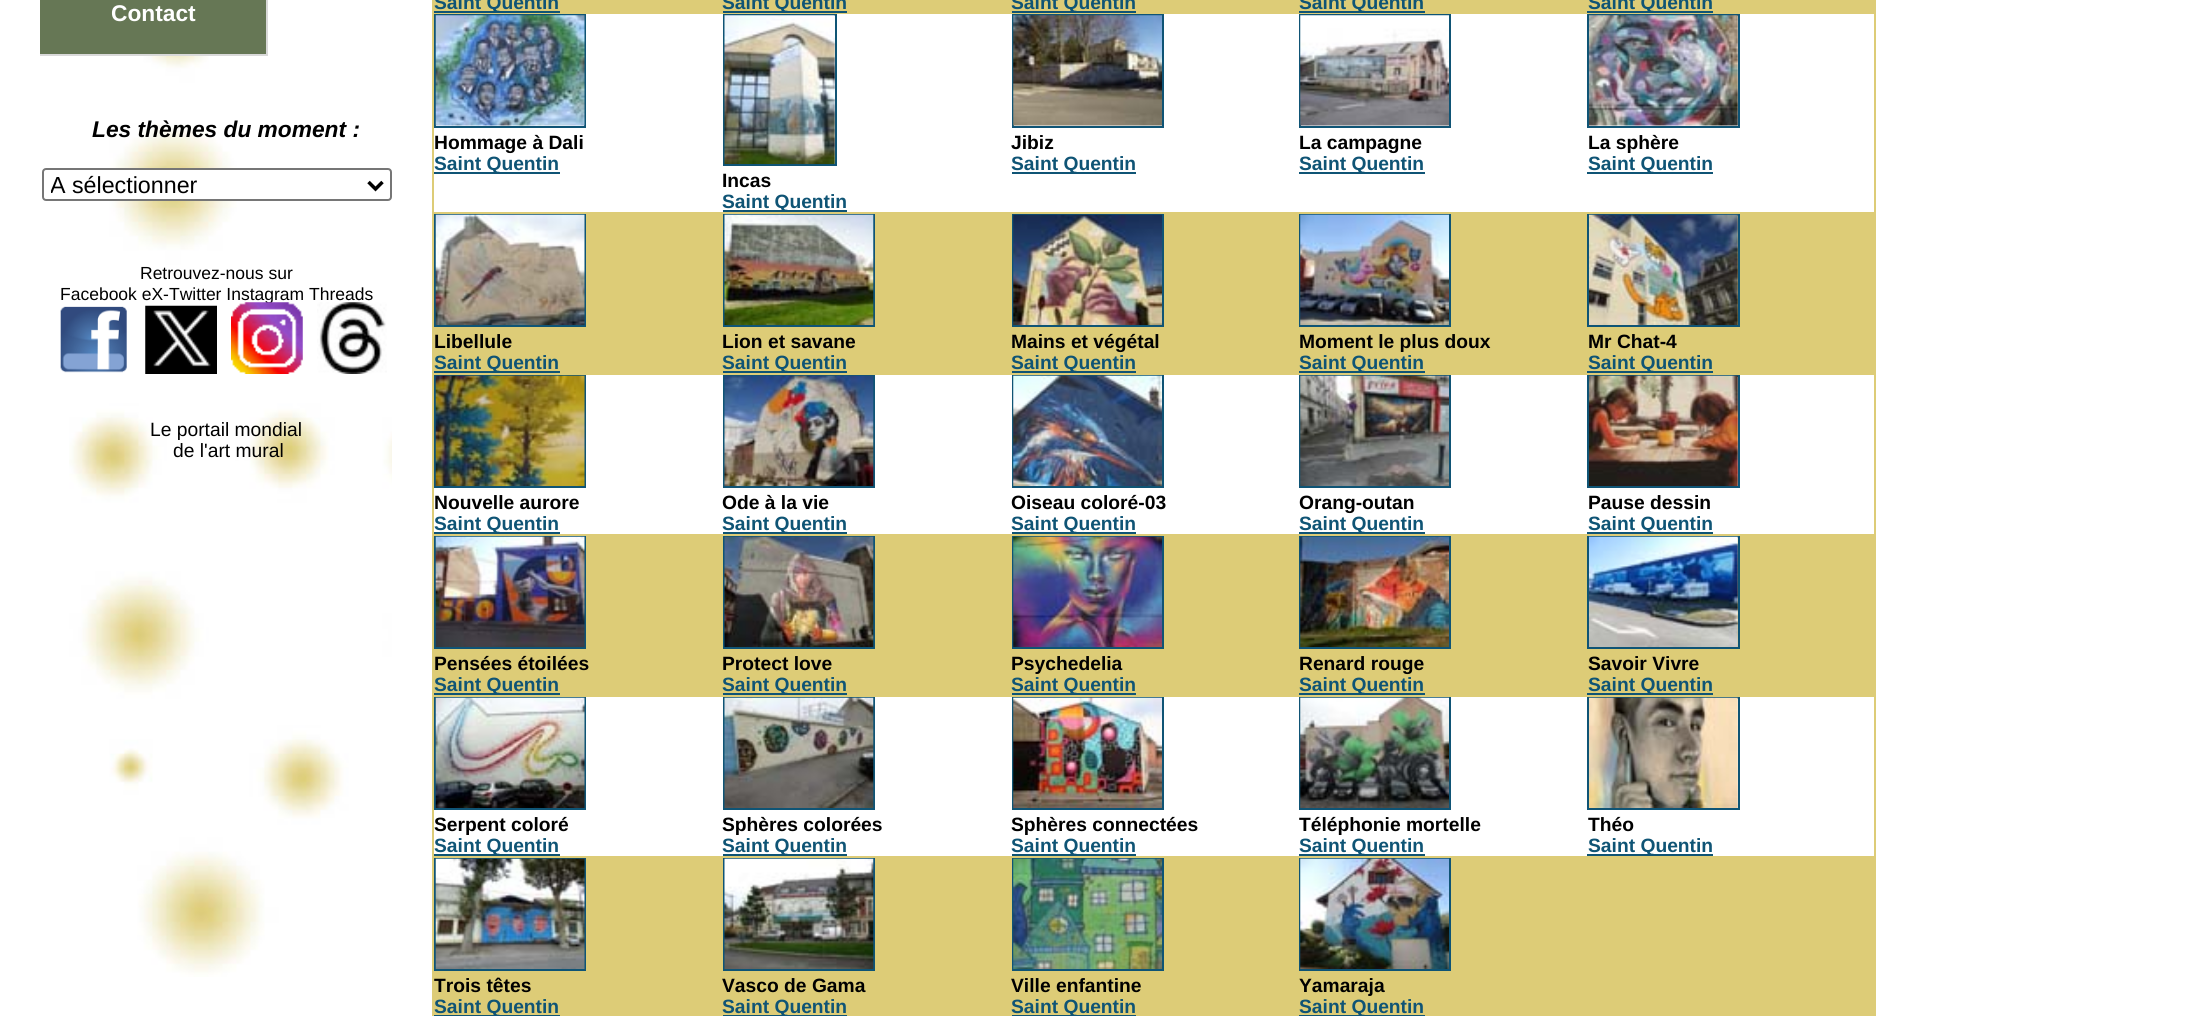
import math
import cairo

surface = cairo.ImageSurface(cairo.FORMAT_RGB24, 2209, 1016)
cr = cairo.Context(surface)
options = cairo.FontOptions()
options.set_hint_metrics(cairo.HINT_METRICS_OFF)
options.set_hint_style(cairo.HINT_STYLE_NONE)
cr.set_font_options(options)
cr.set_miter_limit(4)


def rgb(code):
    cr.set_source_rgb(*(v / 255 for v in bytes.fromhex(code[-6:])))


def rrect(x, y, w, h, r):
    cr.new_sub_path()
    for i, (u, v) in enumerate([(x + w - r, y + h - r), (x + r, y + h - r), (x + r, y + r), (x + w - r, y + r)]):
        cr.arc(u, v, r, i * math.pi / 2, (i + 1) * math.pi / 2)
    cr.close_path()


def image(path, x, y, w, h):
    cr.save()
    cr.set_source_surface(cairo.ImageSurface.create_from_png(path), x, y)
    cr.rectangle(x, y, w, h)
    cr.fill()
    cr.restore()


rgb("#ffffff")
cr.paint()
image("img/1.png", 69, 0, 323, 977)
for x, y, w, h, color in [
    (40, 0, 226, 54, "#667755"),
    (266, 0, 2, 56, "#d9d9d9"),
    (40, 54, 228, 2, "#d9d9d9"),
]:
    rgb(color)
    cr.rectangle(x, y, w, h)
    cr.fill()
rgb("#ffffff")
rrect(43, 169, 348, 31, 3)
cr.fill_preserve()
rgb("#767676")
cr.stroke()
cr.new_path()
cr.move_to(368.5, 182)
cr.line_to(375.5, 189)
cr.line_to(382.5, 182)
rgb("#000000")
cr.set_line_width(3.5)
cr.stroke()
image("img/2.png", 60, 306, 67, 67)
image("img/3.png", 145, 305, 72, 69)
for x, y, w, h, color in [
    (432, 0, 1444, 1016, "#ddcc77"),
    (434, 11, 126, 2, "#0f5475"),
    (723, 11, 124, 2, "#0f5475"),
    (1012, 11, 124, 2, "#0f5475"),
    (1299, 11, 126, 2, "#0f5475"),
    (1587, 11, 126, 2, "#0f5475"),
    (434, 14, 1440, 198, "#ffffff"),
]:
    rgb(color)
    cr.rectangle(x, y, w, h)
    cr.fill()
cr.rectangle(435, 15, 150, 112)
rgb("#0f5475")
cr.set_line_width(2)
cr.stroke()
image("img/6.png", 435, 15, 150, 111)
cr.rectangle(434, 172, 126, 2)
cr.fill()
cr.rectangle(1013, 15, 150, 112)
cr.stroke()
image("img/7.png", 1013, 15, 149, 111)
cr.rectangle(1012, 172, 124, 2)
cr.fill()
cr.rectangle(1300, 15, 150, 112)
cr.stroke()
image("img/8.png", 1300, 15, 149, 111)
cr.rectangle(1299, 172, 126, 2)
cr.fill()
cr.rectangle(1588, 15, 151, 112)
cr.stroke()
image("img/9.png", 1589, 15, 149, 111)
cr.rectangle(1587, 172, 126, 2)
cr.fill()
cr.rectangle(724, 15, 112, 150)
cr.stroke()
image("img/10.png", 724, 15, 111, 149)
cr.rectangle(723, 210, 124, 2)
cr.fill()
cr.rectangle(435, 215, 150, 111)
cr.stroke()
image("img/11.png", 435, 214, 150, 111)
cr.rectangle(434, 371, 126, 2)
cr.fill()
cr.rectangle(724, 215, 150, 111)
cr.stroke()
image("img/12.png", 724, 214, 150, 111)
cr.rectangle(723, 371, 124, 2)
cr.fill()
cr.rectangle(1013, 215, 150, 111)
cr.stroke()
image("img/13.png", 1013, 214, 149, 111)
cr.rectangle(1012, 371, 124, 2)
cr.fill()
cr.rectangle(1300, 215, 150, 111)
cr.stroke()
image("img/14.png", 1300, 214, 149, 111)
cr.rectangle(1299, 371, 126, 2)
cr.fill()
cr.rectangle(1588, 215, 151, 111)
cr.stroke()
image("img/15.png", 1589, 214, 149, 111)
cr.rectangle(1587, 371, 126, 2)
cr.fill()
rgb("#ffffff")
cr.rectangle(434, 375, 1440, 159)
cr.fill()
cr.rectangle(435, 376, 150, 111)
rgb("#0f5475")
cr.stroke()
image("img/16.png", 435, 375, 150, 111)
cr.rectangle(434, 532, 126, 2)
cr.fill()
cr.rectangle(724, 376, 150, 111)
cr.stroke()
image("img/17.png", 724, 375, 150, 111)
cr.rectangle(723, 532, 124, 2)
cr.fill()
cr.rectangle(1013, 376, 150, 111)
cr.stroke()
image("img/18.png", 1013, 375, 149, 111)
cr.rectangle(1012, 532, 124, 2)
cr.fill()
cr.rectangle(1300, 376, 150, 111)
cr.stroke()
image("img/19.png", 1300, 375, 149, 111)
cr.rectangle(1299, 532, 126, 2)
cr.fill()
cr.rectangle(1588, 376, 151, 111)
cr.stroke()
image("img/20.png", 1589, 375, 149, 111)
cr.rectangle(1587, 532, 126, 2)
cr.fill()
cr.rectangle(435, 537, 150, 111)
cr.stroke()
image("img/21.png", 435, 536, 150, 111)
cr.rectangle(434, 693, 126, 2)
cr.fill()
cr.rectangle(724, 537, 150, 111)
cr.stroke()
image("img/22.png", 724, 536, 150, 111)
cr.rectangle(723, 693, 124, 2)
cr.fill()
cr.rectangle(1013, 537, 150, 111)
cr.stroke()
image("img/23.png", 1013, 536, 149, 111)
cr.rectangle(1012, 693, 124, 2)
cr.fill()
cr.rectangle(1300, 537, 150, 111)
cr.stroke()
image("img/24.png", 1300, 536, 149, 111)
cr.rectangle(1299, 693, 126, 2)
cr.fill()
cr.rectangle(1588, 537, 151, 111)
cr.stroke()
image("img/25.png", 1589, 536, 149, 111)
cr.rectangle(1587, 693, 126, 2)
cr.fill()
rgb("#ffffff")
cr.rectangle(434, 697, 1440, 159)
cr.fill()
cr.rectangle(435, 698, 150, 111)
rgb("#0f5475")
cr.stroke()
image("img/26.png", 435, 697, 150, 111)
cr.rectangle(434, 854, 126, 2)
cr.fill()
cr.rectangle(724, 698, 150, 111)
cr.stroke()
image("img/27.png", 724, 697, 150, 111)
cr.rectangle(723, 854, 124, 2)
cr.fill()
cr.rectangle(1013, 698, 150, 111)
cr.stroke()
image("img/28.png", 1013, 697, 149, 111)
cr.rectangle(1012, 854, 124, 2)
cr.fill()
cr.rectangle(1300, 698, 150, 111)
cr.stroke()
image("img/29.png", 1300, 697, 149, 111)
cr.rectangle(1299, 854, 126, 2)
cr.fill()
cr.rectangle(1588, 698, 151, 111)
cr.stroke()
image("img/30.png", 1589, 697, 149, 111)
cr.rectangle(1587, 854, 126, 2)
cr.fill()
cr.rectangle(435, 859, 150, 111)
cr.stroke()
image("img/31.png", 435, 858, 150, 111)
cr.rectangle(434, 1015, 126, 1)
cr.fill()
cr.rectangle(724, 859, 150, 111)
cr.stroke()
image("img/32.png", 724, 858, 150, 111)
cr.rectangle(723, 1015, 124, 1)
cr.fill()
cr.rectangle(1013, 859, 150, 111)
cr.stroke()
image("img/33.png", 1013, 858, 149, 111)
cr.rectangle(1012, 1015, 124, 1)
cr.fill()
cr.rectangle(1300, 859, 150, 111)
cr.stroke()
image("img/34.png", 1300, 858, 149, 111)
cr.rectangle(1299, 1015, 126, 1)
cr.fill()
cr.select_font_face("Liberation Sans", cairo.FONT_SLANT_NORMAL, cairo.FONT_WEIGHT_BOLD)
cr.set_font_size(22.75)
rgb("#ffffff")
cr.move_to(111, 21)
cr.show_text("Contact")
cr.select_font_face("Liberation Sans", cairo.FONT_SLANT_ITALIC, cairo.FONT_WEIGHT_BOLD)
rgb("#000000")
cr.move_to(92, 137)
cr.show_text("Les thèmes du moment :")
cr.save()
cr.rectangle(51, 170, 311, 30)
cr.clip()
cr.select_font_face("Liberation Sans")
cr.set_font_size(23.25)
cr.move_to(50, 193)
cr.show_text("A sélectionner")
cr.restore()
cr.select_font_face("Liberation Sans")
cr.set_font_size(17.5)
cr.move_to(140, 279)
cr.show_text("Retrouvez-nous sur")
cr.move_to(60, 300)
cr.show_text("Facebook eX-Twitter Instagram Threads")
image("img/4.png", 231, 302, 72, 72)
image("img/5.png", 317, 302, 70, 72)
cr.set_font_size(19.25)
cr.move_to(150, 436)
cr.show_text("Le portail mondial")
cr.move_to(173, 457)
cr.show_text("de l'art mural")
cr.select_font_face("Liberation Sans", cairo.FONT_SLANT_NORMAL, cairo.FONT_WEIGHT_BOLD)
rgb("#0f5475")
for x, y, s in [
    (434, 9, "Saint Quentin"),
    (722, 9, "Saint Quentin"),
    (1011, 9, "Saint Quentin"),
    (1299, 9, "Saint Quentin"),
    (1588, 9, "Saint Quentin"),
]:
    cr.move_to(x, y)
    cr.show_text(s)
rgb("#000000")
cr.move_to(434, 149)
cr.show_text("Hommage à Dali")
rgb("#0f5475")
cr.move_to(434, 170)
cr.show_text("Saint Quentin")
rgb("#000000")
cr.move_to(1011, 149)
cr.show_text("Jibiz")
rgb("#0f5475")
cr.move_to(1011, 170)
cr.show_text("Saint Quentin")
rgb("#000000")
cr.move_to(1299, 149)
cr.show_text("La campagne")
rgb("#0f5475")
cr.move_to(1299, 170)
cr.show_text("Saint Quentin")
rgb("#000000")
cr.move_to(1588, 149)
cr.show_text("La sphère")
rgb("#0f5475")
cr.move_to(1588, 170)
cr.show_text("Saint Quentin")
rgb("#000000")
cr.move_to(722, 187)
cr.show_text("Incas")
rgb("#0f5475")
cr.move_to(722, 208)
cr.show_text("Saint Quentin")
rgb("#000000")
cr.move_to(434, 348)
cr.show_text("Libellule")
rgb("#0f5475")
cr.move_to(434, 369)
cr.show_text("Saint Quentin")
rgb("#000000")
cr.move_to(722, 348)
cr.show_text("Lion et savane")
rgb("#0f5475")
cr.move_to(722, 369)
cr.show_text("Saint Quentin")
rgb("#000000")
cr.move_to(1011, 348)
cr.show_text("Mains et végétal")
rgb("#0f5475")
cr.move_to(1011, 369)
cr.show_text("Saint Quentin")
rgb("#000000")
cr.move_to(1299, 348)
cr.show_text("Moment le plus doux")
rgb("#0f5475")
cr.move_to(1299, 369)
cr.show_text("Saint Quentin")
rgb("#000000")
cr.move_to(1588, 348)
cr.show_text("Mr Chat-4")
rgb("#0f5475")
cr.move_to(1588, 369)
cr.show_text("Saint Quentin")
rgb("#000000")
cr.move_to(434, 509)
cr.show_text("Nouvelle aurore")
rgb("#0f5475")
cr.move_to(434, 530)
cr.show_text("Saint Quentin")
rgb("#000000")
cr.move_to(722, 509)
cr.show_text("Ode à la vie")
rgb("#0f5475")
cr.move_to(722, 530)
cr.show_text("Saint Quentin")
rgb("#000000")
cr.move_to(1011, 509)
cr.show_text("Oiseau coloré-03")
rgb("#0f5475")
cr.move_to(1011, 530)
cr.show_text("Saint Quentin")
rgb("#000000")
cr.move_to(1299, 509)
cr.show_text("Orang-outan")
rgb("#0f5475")
cr.move_to(1299, 530)
cr.show_text("Saint Quentin")
rgb("#000000")
cr.move_to(1588, 509)
cr.show_text("Pause dessin")
rgb("#0f5475")
cr.move_to(1588, 530)
cr.show_text("Saint Quentin")
rgb("#000000")
cr.move_to(434, 670)
cr.show_text("Pensées étoilées")
rgb("#0f5475")
cr.move_to(434, 691)
cr.show_text("Saint Quentin")
rgb("#000000")
cr.move_to(722, 670)
cr.show_text("Protect love")
rgb("#0f5475")
cr.move_to(722, 691)
cr.show_text("Saint Quentin")
rgb("#000000")
cr.move_to(1011, 670)
cr.show_text("Psychedelia")
rgb("#0f5475")
cr.move_to(1011, 691)
cr.show_text("Saint Quentin")
rgb("#000000")
cr.move_to(1299, 670)
cr.show_text("Renard rouge")
rgb("#0f5475")
cr.move_to(1299, 691)
cr.show_text("Saint Quentin")
rgb("#000000")
cr.move_to(1588, 670)
cr.show_text("Savoir Vivre")
rgb("#0f5475")
cr.move_to(1588, 691)
cr.show_text("Saint Quentin")
rgb("#000000")
cr.move_to(434, 831)
cr.show_text("Serpent coloré")
rgb("#0f5475")
cr.move_to(434, 852)
cr.show_text("Saint Quentin")
rgb("#000000")
cr.move_to(722, 831)
cr.show_text("Sphères colorées")
rgb("#0f5475")
cr.move_to(722, 852)
cr.show_text("Saint Quentin")
rgb("#000000")
cr.move_to(1011, 831)
cr.show_text("Sphères connectées")
rgb("#0f5475")
cr.move_to(1011, 852)
cr.show_text("Saint Quentin")
rgb("#000000")
cr.move_to(1299, 831)
cr.show_text("Téléphonie mortelle")
rgb("#0f5475")
cr.move_to(1299, 852)
cr.show_text("Saint Quentin")
rgb("#000000")
cr.move_to(1588, 831)
cr.show_text("Théo")
rgb("#0f5475")
cr.move_to(1588, 852)
cr.show_text("Saint Quentin")
rgb("#000000")
cr.move_to(434, 992)
cr.show_text("Trois têtes")
rgb("#0f5475")
cr.move_to(434, 1013)
cr.show_text("Saint Quentin")
rgb("#000000")
cr.move_to(722, 992)
cr.show_text("Vasco de Gama")
rgb("#0f5475")
cr.move_to(722, 1013)
cr.show_text("Saint Quentin")
rgb("#000000")
cr.move_to(1011, 992)
cr.show_text("Ville enfantine")
rgb("#0f5475")
cr.move_to(1011, 1013)
cr.show_text("Saint Quentin")
rgb("#000000")
cr.move_to(1299, 992)
cr.show_text("Yamaraja")
rgb("#0f5475")
cr.move_to(1299, 1013)
cr.show_text("Saint Quentin")
surface.write_to_png("page.png")
